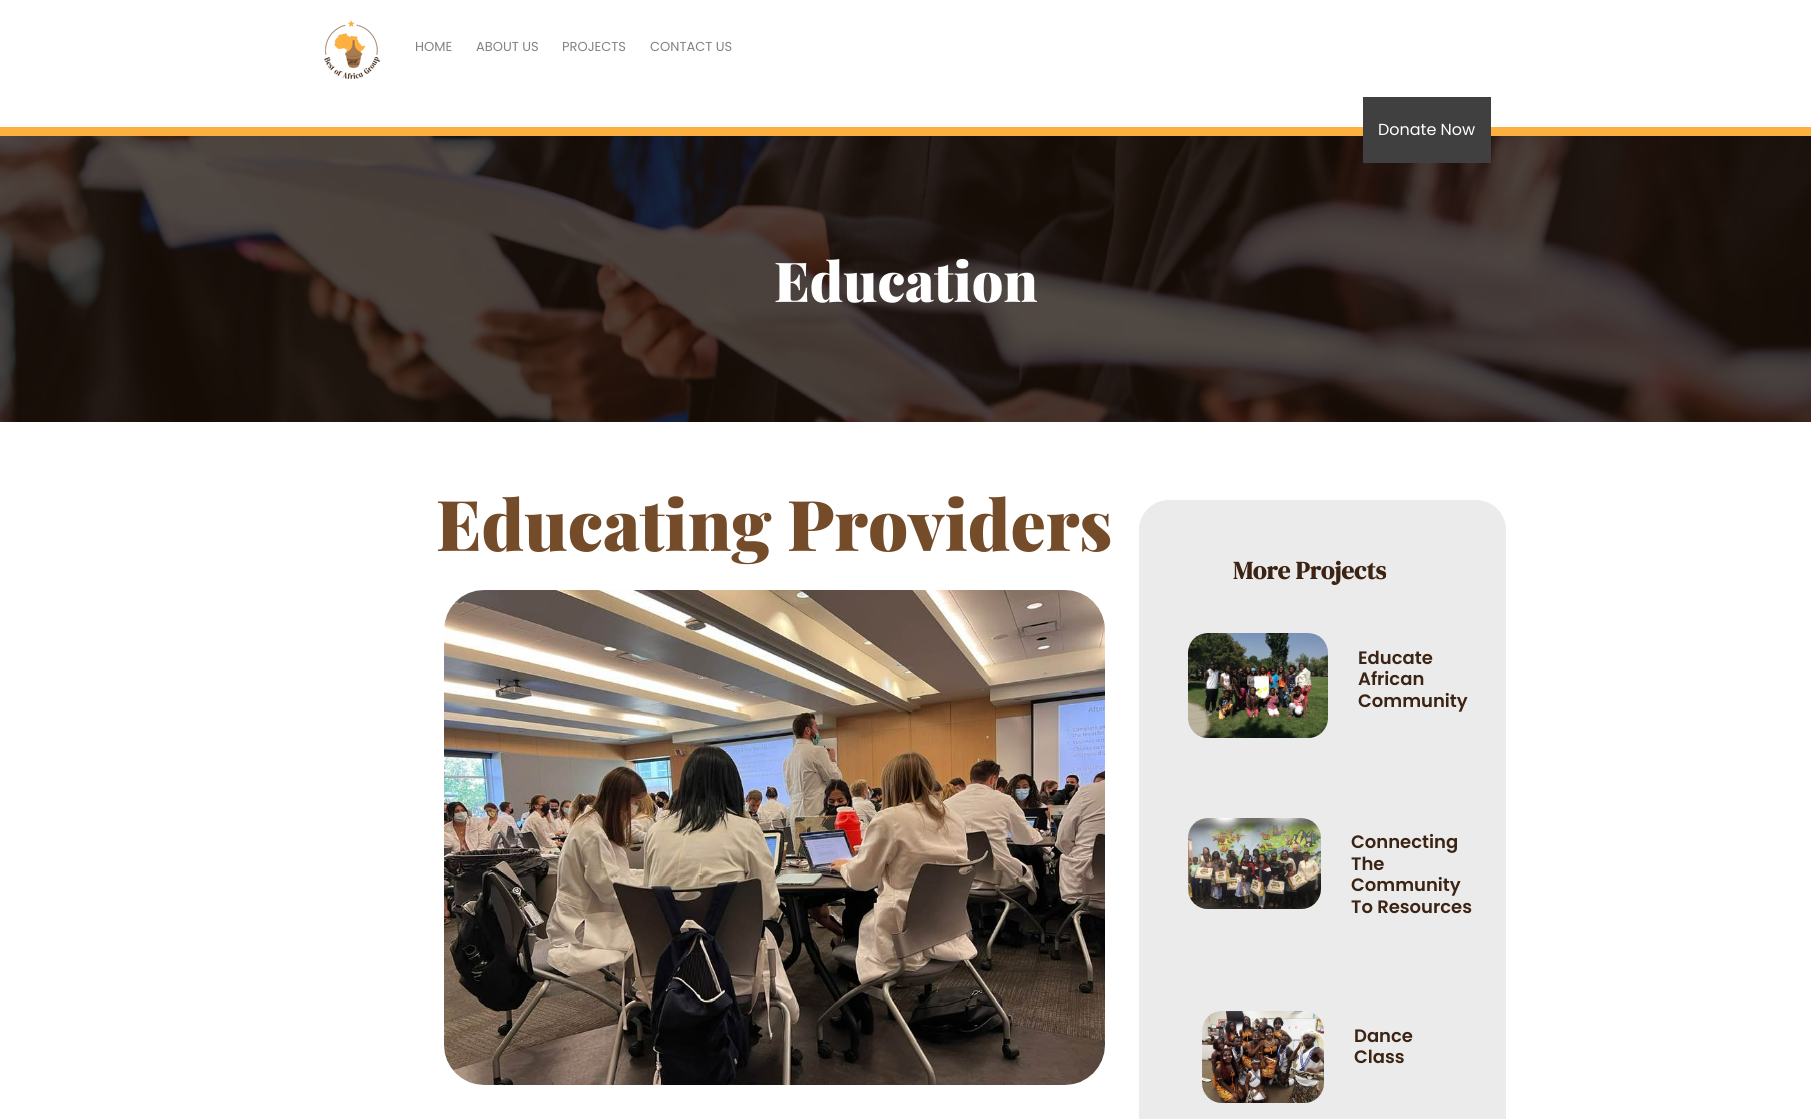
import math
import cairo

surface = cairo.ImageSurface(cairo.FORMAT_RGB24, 1811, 1119)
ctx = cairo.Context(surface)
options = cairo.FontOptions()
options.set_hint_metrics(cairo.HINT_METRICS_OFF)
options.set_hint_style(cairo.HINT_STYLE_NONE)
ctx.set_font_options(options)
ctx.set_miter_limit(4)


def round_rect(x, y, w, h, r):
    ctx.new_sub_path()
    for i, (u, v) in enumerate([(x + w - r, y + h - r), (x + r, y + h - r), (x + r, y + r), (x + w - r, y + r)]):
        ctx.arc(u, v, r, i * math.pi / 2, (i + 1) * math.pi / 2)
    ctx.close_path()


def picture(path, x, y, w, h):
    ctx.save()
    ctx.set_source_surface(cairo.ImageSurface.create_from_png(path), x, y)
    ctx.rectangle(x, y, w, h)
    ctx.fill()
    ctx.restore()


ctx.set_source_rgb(1, 1, 1)
ctx.paint()
picture("img1.png", 324, 20, 56, 59)
ctx.select_font_face("Poppins")
ctx.set_font_size(13)
ctx.set_source_rgb(0.51, 0.51, 0.51)
ctx.move_to(415, 51)
ctx.show_text("HOME")
ctx.move_to(476, 51)
ctx.show_text("ABOUT US")
ctx.move_to(562, 51)
ctx.show_text("PROJECTS")
ctx.move_to(650, 51)
ctx.show_text("CONTACT US")
ctx.set_source_rgb(0.984, 0.69, 0.251)
ctx.rectangle(0, 127, 1811, 9)
ctx.fill()
picture("img2.png", 0, 136, 1811, 286)
ctx.set_source_rgb(0.251, 0.251, 0.251)
ctx.rectangle(1363, 97, 128, 66)
ctx.fill()
ctx.set_font_size(16)
ctx.set_source_rgb(1, 1, 1)
ctx.move_to(1378, 135)
ctx.show_text("Donate Now")
ctx.select_font_face("Playfair Display Black")
ctx.set_font_size(55)
ctx.move_to(774, 302)
ctx.show_text("Education")
ctx.set_font_size(70)
ctx.set_source_rgb(0.459, 0.298, 0.161)
ctx.move_to(436, 551)
ctx.show_text("Educating Providers")
picture("img3.png", 444, 590, 661, 495)
ctx.set_source_rgb(0.918, 0.918, 0.918)
round_rect(1139, 500, 367, 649, 30)
ctx.fill()
ctx.select_font_face("DM Serif Display", cairo.FONT_SLANT_NORMAL, cairo.FONT_WEIGHT_BOLD)
ctx.set_font_size(25)
ctx.set_source_rgb(0.235, 0.141, 0.082)
ctx.move_to(1233, 579)
ctx.show_text("More Projects")
picture("img4.png", 1188, 633, 140, 105)
ctx.select_font_face("Poppins SemiBold")
ctx.set_font_size(18)
ctx.move_to(1358, 664)
ctx.show_text("Educate")
ctx.move_to(1358, 685)
ctx.show_text("African")
ctx.move_to(1358, 707)
ctx.show_text("Community")
picture("img5.png", 1188, 818, 133, 91)
ctx.move_to(1351, 848)
ctx.show_text("Connecting")
ctx.move_to(1351, 870)
ctx.show_text("The")
ctx.move_to(1351, 891)
ctx.show_text("Community")
ctx.move_to(1351, 913)
ctx.show_text("To Resources")
picture("img6.png", 1202, 1011, 122, 92)
ctx.move_to(1354, 1042)
ctx.show_text("Dance")
ctx.move_to(1354, 1063)
ctx.show_text("Class")
surface.write_to_png("page.png")
